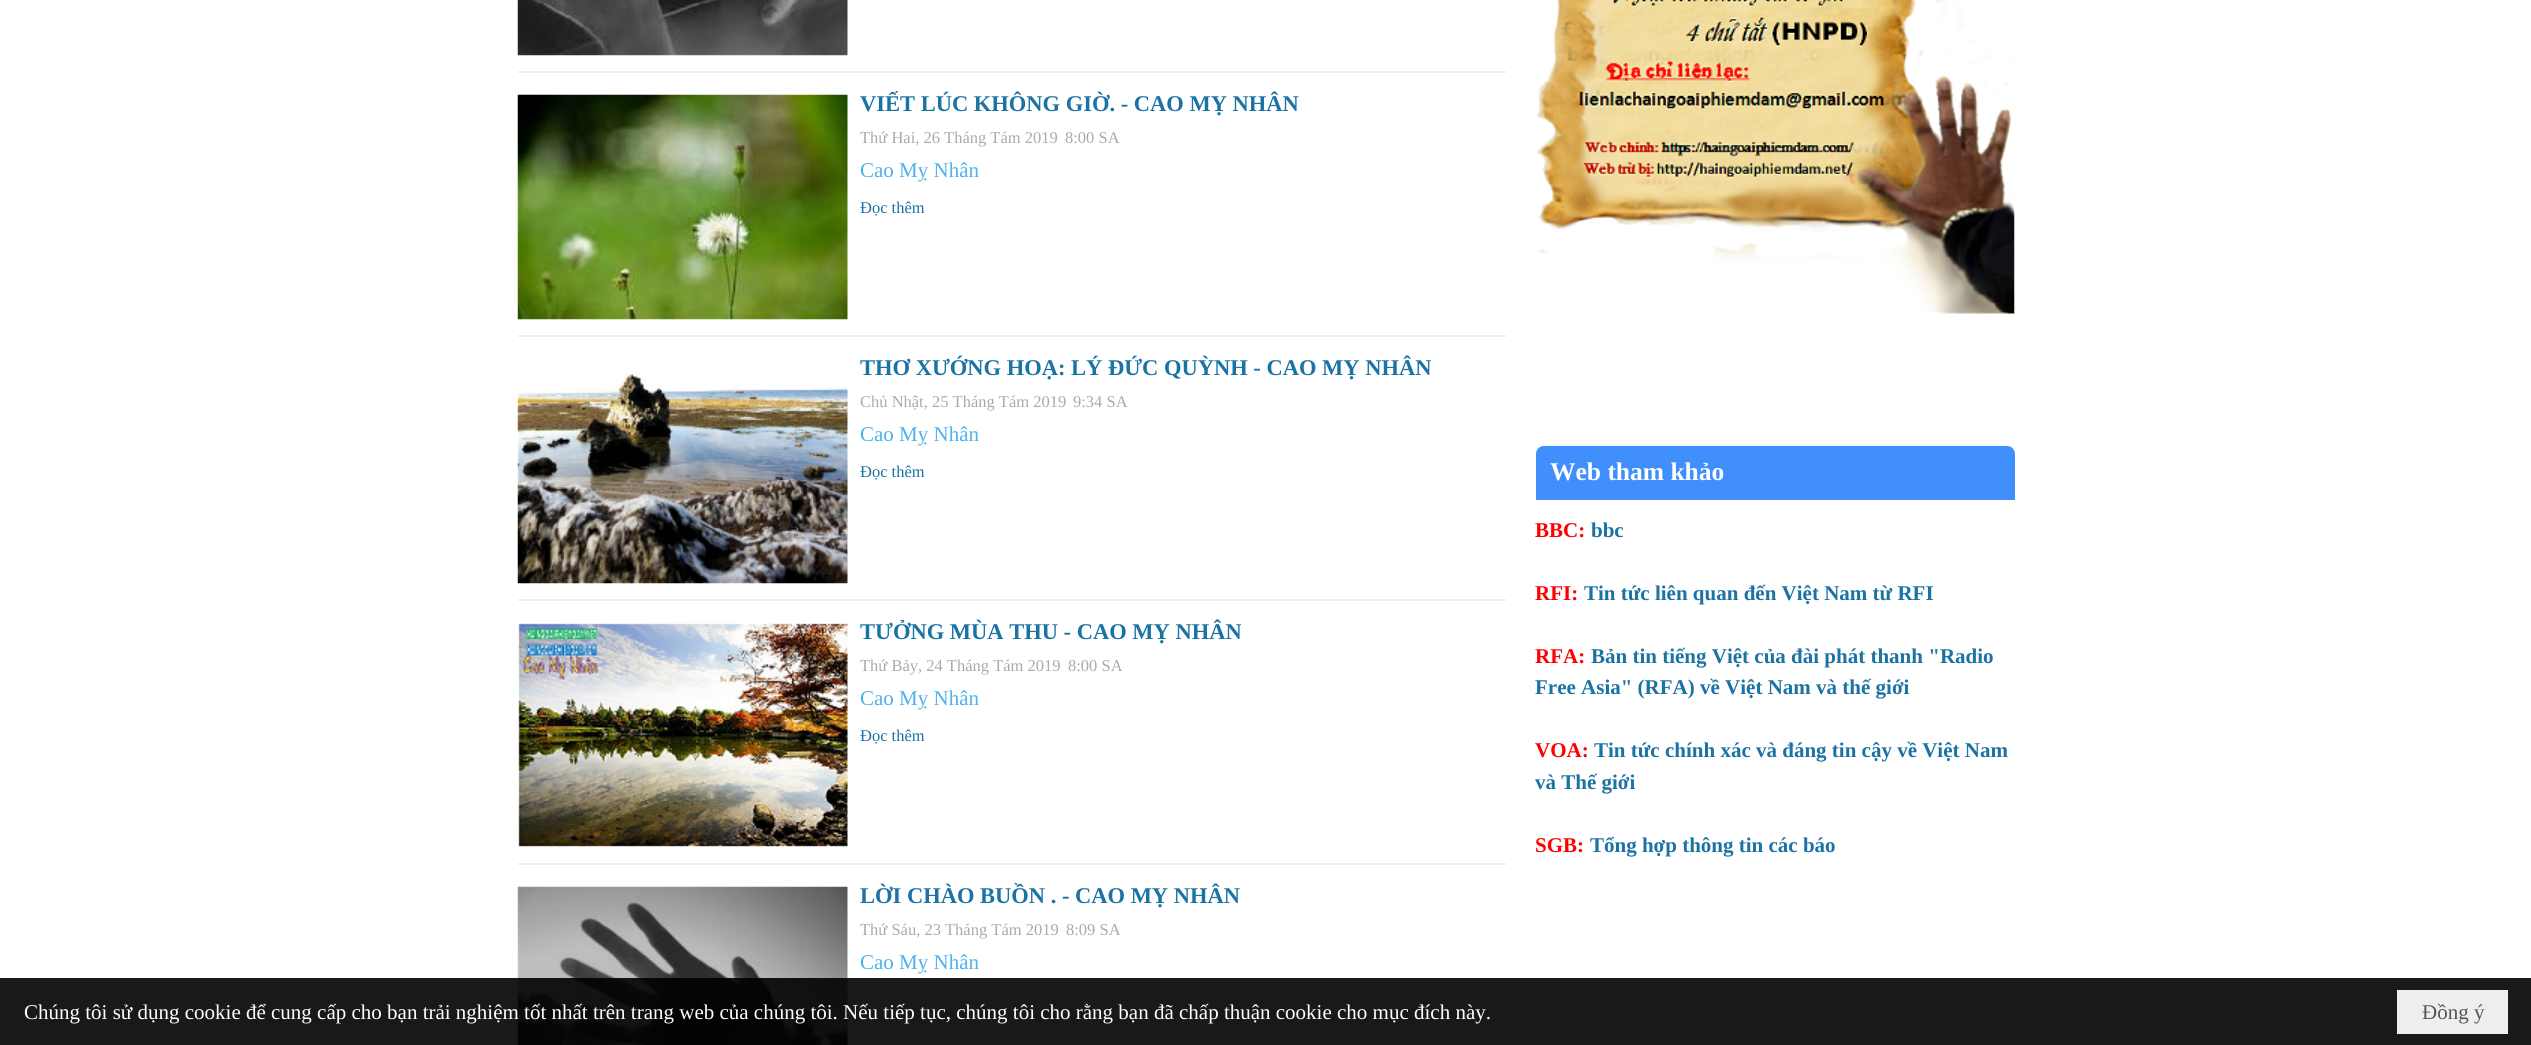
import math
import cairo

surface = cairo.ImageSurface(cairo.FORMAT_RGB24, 2531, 1045)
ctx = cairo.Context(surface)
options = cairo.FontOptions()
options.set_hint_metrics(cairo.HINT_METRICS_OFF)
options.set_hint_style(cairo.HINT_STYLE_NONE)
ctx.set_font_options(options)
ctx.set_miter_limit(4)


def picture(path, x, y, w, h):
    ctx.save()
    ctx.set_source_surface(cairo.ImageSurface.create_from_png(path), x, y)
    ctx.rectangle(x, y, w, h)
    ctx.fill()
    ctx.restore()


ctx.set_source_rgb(1, 1, 1)
ctx.paint()
ctx.set_source_rgb(0.933, 0.933, 0.933)
ctx.rectangle(518, 71, 988, 2)
ctx.fill()
picture("img1.png", 517, 0, 331, 56)
ctx.rectangle(518, 335, 988, 2)
ctx.fill()
picture("img2.png", 517, 94, 331, 226)
ctx.select_font_face("Liberation Serif", cairo.FONT_SLANT_NORMAL, cairo.FONT_WEIGHT_BOLD)
ctx.set_font_size(22.5)
ctx.set_source_rgb(0.106, 0.451, 0.643)
ctx.move_to(860, 111)
ctx.show_text("VIẾT LÚC KHÔNG GIỜ. - CAO MỴ NHÂN")
ctx.select_font_face("Liberation Serif")
ctx.set_font_size(16.5)
ctx.set_source_rgb(0.667, 0.667, 0.667)
ctx.move_to(860, 143)
ctx.show_text("Thứ Hai, 26 Tháng Tám 2019")
ctx.move_to(1065, 143)
ctx.show_text("8:00 SA")
ctx.set_font_size(21)
ctx.set_source_rgb(0.302, 0.694, 0.925)
ctx.move_to(860, 177)
ctx.show_text("Cao Mỵ Nhân")
ctx.set_font_size(16.5)
ctx.set_source_rgb(0.106, 0.451, 0.643)
ctx.move_to(860, 213)
ctx.show_text("Đọc thêm")
ctx.set_source_rgb(0.933, 0.933, 0.933)
ctx.rectangle(518, 599, 988, 2)
ctx.fill()
ctx.select_font_face("Liberation Serif", cairo.FONT_SLANT_NORMAL, cairo.FONT_WEIGHT_BOLD)
ctx.set_font_size(22.5)
ctx.set_source_rgb(0.106, 0.451, 0.643)
ctx.move_to(860, 375)
ctx.show_text("THƠ XƯỚNG HOẠ: LÝ ĐỨC QUỲNH - CAO MỴ NHÂN")
picture("img3.png", 517, 373, 331, 211)
ctx.select_font_face("Liberation Serif")
ctx.set_font_size(16.5)
ctx.set_source_rgb(0.667, 0.667, 0.667)
ctx.move_to(860, 407)
ctx.show_text("Chủ Nhật, 25 Tháng Tám 2019")
ctx.move_to(1073, 407)
ctx.show_text("9:34 SA")
ctx.set_font_size(21)
ctx.set_source_rgb(0.302, 0.694, 0.925)
ctx.move_to(860, 441)
ctx.show_text("Cao Mỵ Nhân")
ctx.set_font_size(16.5)
ctx.set_source_rgb(0.106, 0.451, 0.643)
ctx.move_to(860, 477)
ctx.show_text("Đọc thêm")
ctx.set_source_rgb(0.933, 0.933, 0.933)
ctx.rectangle(518, 863, 988, 2)
ctx.fill()
picture("img4.png", 518, 623, 330, 224)
ctx.select_font_face("Liberation Serif", cairo.FONT_SLANT_NORMAL, cairo.FONT_WEIGHT_BOLD)
ctx.set_font_size(22.5)
ctx.set_source_rgb(0.106, 0.451, 0.643)
ctx.move_to(860, 639)
ctx.show_text("TƯỞNG MÙA THU - CAO MỴ NHÂN")
ctx.select_font_face("Liberation Serif")
ctx.set_font_size(16.5)
ctx.set_source_rgb(0.667, 0.667, 0.667)
ctx.move_to(860, 671)
ctx.show_text("Thứ Bảy, 24 Tháng Tám 2019")
ctx.move_to(1068, 671)
ctx.show_text("8:00 SA")
ctx.set_font_size(21)
ctx.set_source_rgb(0.302, 0.694, 0.925)
ctx.move_to(860, 705)
ctx.show_text("Cao Mỵ Nhân")
ctx.set_font_size(16.5)
ctx.set_source_rgb(0.106, 0.451, 0.643)
ctx.move_to(860, 741)
ctx.show_text("Đọc thêm")
picture("img5.png", 517, 886, 331, 159)
ctx.select_font_face("Liberation Serif", cairo.FONT_SLANT_NORMAL, cairo.FONT_WEIGHT_BOLD)
ctx.set_font_size(22.5)
ctx.move_to(860, 903)
ctx.show_text("LỜI CHÀO BUỒN . - CAO MỴ NHÂN")
ctx.select_font_face("Liberation Serif")
ctx.set_font_size(16.5)
ctx.set_source_rgb(0.667, 0.667, 0.667)
ctx.move_to(860, 935)
ctx.show_text("Thứ Sáu, 23 Tháng Tám 2019")
ctx.move_to(1066, 935)
ctx.show_text("8:09 SA")
ctx.set_font_size(21)
ctx.set_source_rgb(0.302, 0.694, 0.925)
ctx.move_to(860, 969)
ctx.show_text("Cao Mỵ Nhân")
picture("img6.png", 1537, 0, 478, 314)
ctx.set_source_rgb(0.255, 0.561, 0.988)
ctx.new_path()
ctx.move_to(1544, 446)
ctx.line_to(2007, 446)
ctx.curve_to(2011.5, 446, 2015, 449.5, 2015, 454)
ctx.line_to(2015, 500)
ctx.line_to(1536, 500)
ctx.line_to(1536, 454)
ctx.curve_to(1536, 449.5, 1539.5, 446, 1544, 446)
ctx.close_path()
ctx.fill()
ctx.select_font_face("Liberation Serif", cairo.FONT_SLANT_NORMAL, cairo.FONT_WEIGHT_BOLD)
ctx.set_font_size(25.5)
ctx.set_source_rgb(1, 1, 1)
ctx.move_to(1550, 480)
ctx.show_text("Web tham khảo")
ctx.set_font_size(21)
ctx.set_source_rgb(1, 0, 0)
ctx.move_to(1535, 537)
ctx.show_text("BBC:")
ctx.set_source_rgb(0.106, 0.451, 0.643)
ctx.move_to(1591, 537)
ctx.show_text("bbc")
ctx.set_source_rgb(1, 0, 0)
ctx.move_to(1535, 600)
ctx.show_text("RFI:")
ctx.set_source_rgb(0.106, 0.451, 0.643)
ctx.move_to(1584, 600)
ctx.show_text("Tin tức liên quan đến Việt Nam từ RFI")
ctx.set_source_rgb(1, 0, 0)
ctx.move_to(1535, 663)
ctx.show_text("RFA:")
ctx.set_source_rgb(0.106, 0.451, 0.643)
ctx.move_to(1591, 663)
ctx.show_text("Bản tin tiếng Việt của đài phát thanh \"Radio")
ctx.move_to(1535, 694)
ctx.show_text("Free Asia\" (RFA) về Việt Nam và thế giới")
ctx.set_source_rgb(1, 0, 0)
ctx.move_to(1535, 757)
ctx.show_text("VOA:")
ctx.set_source_rgb(0.106, 0.451, 0.643)
ctx.move_to(1594, 757)
ctx.show_text("Tin tức chính xác và đáng tin cậy về Việt Nam")
ctx.move_to(1535, 789)
ctx.show_text("và Thế giới")
ctx.set_source_rgb(1, 0, 0)
ctx.move_to(1535, 852)
ctx.show_text("SGB:")
ctx.set_source_rgb(0.106, 0.451, 0.643)
ctx.move_to(1590, 852)
ctx.show_text("Tổng hợp thông tin các báo")
ctx.set_source_rgba(0, 0, 0, 0.9)
ctx.rectangle(0, 978, 2531, 67)
ctx.fill()
ctx.select_font_face("Liberation Serif")
ctx.set_source_rgb(1, 1, 1)
ctx.move_to(24, 1019)
ctx.show_text("Chúng tôi sử dụng cookie để cung cấp cho bạn trải nghiệm tốt nhất trên trang web của chúng tôi. Nếu tiếp tục, chúng tôi cho rằng bạn đã chấp thuận cookie cho mục đích này.")
ctx.set_source_rgb(0.933, 0.933, 0.933)
ctx.rectangle(2397, 990, 111, 44)
ctx.fill()
ctx.set_source_rgb(0.333, 0.333, 0.333)
ctx.move_to(2422, 1019)
ctx.show_text("Đồng ý")
surface.write_to_png("page.png")
